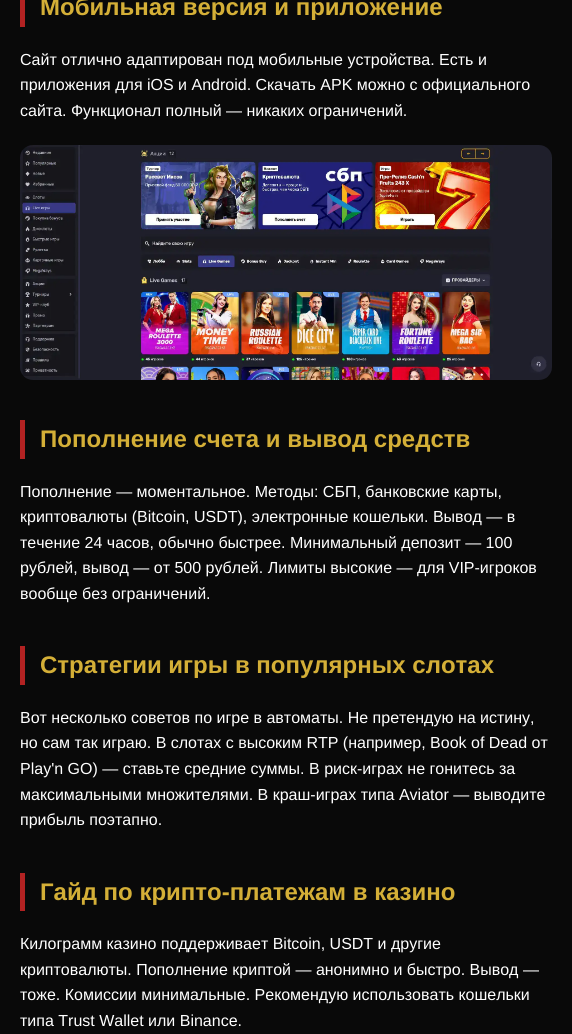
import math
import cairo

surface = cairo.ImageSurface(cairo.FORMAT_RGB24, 572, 1034)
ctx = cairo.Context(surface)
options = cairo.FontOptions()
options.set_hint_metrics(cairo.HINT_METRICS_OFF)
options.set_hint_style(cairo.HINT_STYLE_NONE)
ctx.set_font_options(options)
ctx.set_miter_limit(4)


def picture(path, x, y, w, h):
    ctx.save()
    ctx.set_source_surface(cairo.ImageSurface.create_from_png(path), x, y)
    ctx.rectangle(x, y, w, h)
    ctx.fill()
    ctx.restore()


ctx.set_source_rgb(0.039, 0.039, 0.039)
ctx.paint()
ctx.set_source_rgb(0.698, 0.133, 0.133)
ctx.rectangle(20, 0, 5, 27)
ctx.fill()
ctx.select_font_face("Liberation Sans", cairo.FONT_SLANT_NORMAL, cairo.FONT_WEIGHT_BOLD)
ctx.set_font_size(24)
ctx.set_source_rgb(0.831, 0.686, 0.216)
ctx.move_to(40, 15)
ctx.show_text("Мобильная версия и приложение")
ctx.select_font_face("Liberation Sans")
ctx.set_font_size(16)
ctx.set_source_rgb(1, 1, 1)
ctx.move_to(20, 65)
ctx.show_text("Сайт отлично адаптирован под мобильные устройства. Есть и")
ctx.move_to(20, 90)
ctx.show_text("приложения для iOS и Android. Скачать APK можно с официального")
ctx.move_to(20, 116)
ctx.show_text("сайта. Функционал полный — никаких ограничений.")
picture("img1.png", 20, 145, 532, 235)
ctx.set_source_rgb(0.698, 0.133, 0.133)
ctx.rectangle(20, 420, 5, 39)
ctx.fill()
ctx.select_font_face("Liberation Sans", cairo.FONT_SLANT_NORMAL, cairo.FONT_WEIGHT_BOLD)
ctx.set_font_size(24)
ctx.set_source_rgb(0.831, 0.686, 0.216)
ctx.move_to(40, 447)
ctx.show_text("Пополнение счета и вывод средств")
ctx.select_font_face("Liberation Sans")
ctx.set_font_size(16)
ctx.set_source_rgb(1, 1, 1)
ctx.move_to(20, 497)
ctx.show_text("Пополнение — моментальное. Методы: СБП, банковские карты,")
ctx.move_to(20, 522)
ctx.show_text("криптовалюты (Bitcoin, USDT), электронные кошельки. Вывод — в")
ctx.move_to(20, 548)
ctx.show_text("течение 24 часов, обычно быстрее. Минимальный депозит — 100")
ctx.move_to(20, 573)
ctx.show_text("рублей, вывод — от 500 рублей. Лимиты высокие — для VIP-игроков")
ctx.move_to(20, 599)
ctx.show_text("вообще без ограничений.")
ctx.set_source_rgb(0.698, 0.133, 0.133)
ctx.rectangle(20, 646, 5, 39)
ctx.fill()
ctx.select_font_face("Liberation Sans", cairo.FONT_SLANT_NORMAL, cairo.FONT_WEIGHT_BOLD)
ctx.set_font_size(24)
ctx.set_source_rgb(0.831, 0.686, 0.216)
ctx.move_to(40, 673)
ctx.show_text("Стратегии игры в популярных слотах")
ctx.select_font_face("Liberation Sans")
ctx.set_font_size(16)
ctx.set_source_rgb(1, 1, 1)
ctx.move_to(20, 723)
ctx.show_text("Вот несколько советов по игре в автоматы. Не претендую на истину,")
ctx.move_to(20, 748)
ctx.show_text("но сам так играю. В слотах с высоким RTP (например, Book of Dead от")
ctx.move_to(20, 774)
ctx.show_text("Play'n GO) — ставьте средние суммы. В риск-играх не гонитесь за")
ctx.move_to(20, 800)
ctx.show_text("максимальными множителями. В краш-играх типа Aviator — выводите")
ctx.move_to(20, 825)
ctx.show_text("прибыль поэтапно.")
ctx.set_source_rgb(0.698, 0.133, 0.133)
ctx.rectangle(20, 873, 5, 38)
ctx.fill()
ctx.select_font_face("Liberation Sans", cairo.FONT_SLANT_NORMAL, cairo.FONT_WEIGHT_BOLD)
ctx.set_font_size(24)
ctx.set_source_rgb(0.831, 0.686, 0.216)
ctx.move_to(40, 900)
ctx.show_text("Гайд по крипто-платежам в казино")
ctx.select_font_face("Liberation Sans")
ctx.set_font_size(16)
ctx.set_source_rgb(1, 1, 1)
ctx.move_to(20, 949)
ctx.show_text("Килограмм казино поддерживает Bitcoin, USDT и другие")
ctx.move_to(20, 975)
ctx.show_text("криптовалюты. Пополнение криптой — анонимно и быстро. Вывод —")
ctx.move_to(20, 1000)
ctx.show_text("тоже. Комиссии минимальные. Рекомендую использовать кошельки")
ctx.move_to(20, 1026)
ctx.show_text("типа Trust Wallet или Binance.")
surface.write_to_png("page.png")
